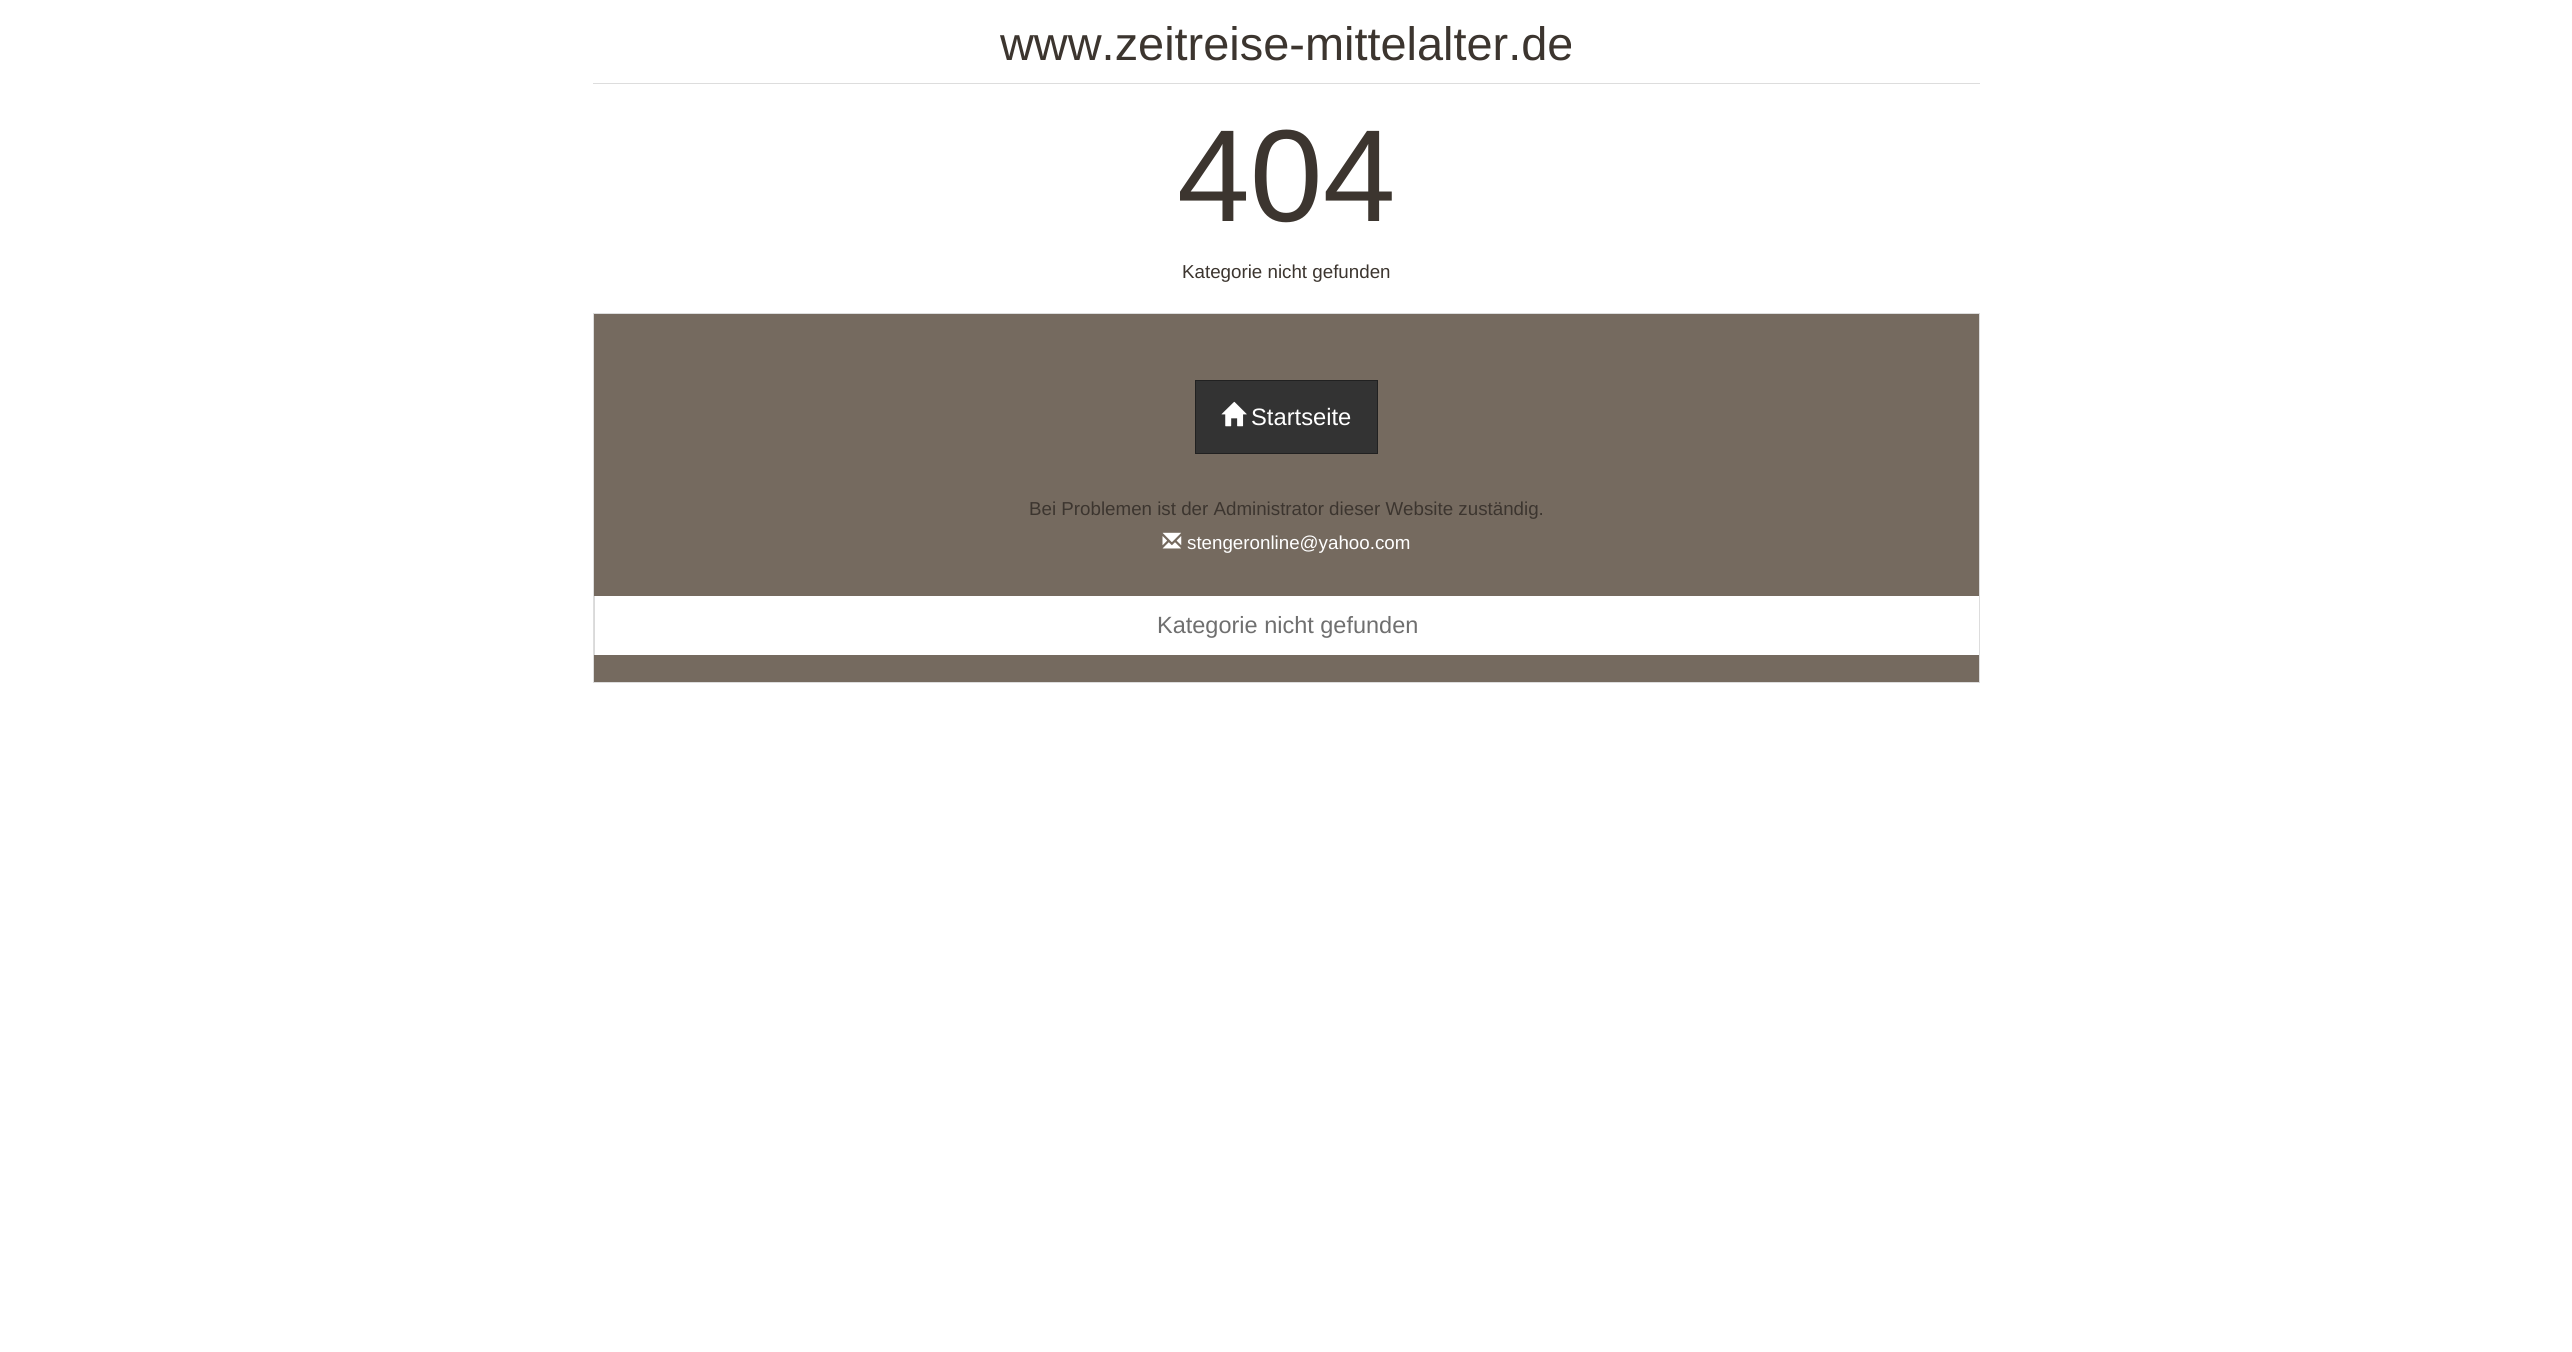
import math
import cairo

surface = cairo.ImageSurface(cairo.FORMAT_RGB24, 2572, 1352)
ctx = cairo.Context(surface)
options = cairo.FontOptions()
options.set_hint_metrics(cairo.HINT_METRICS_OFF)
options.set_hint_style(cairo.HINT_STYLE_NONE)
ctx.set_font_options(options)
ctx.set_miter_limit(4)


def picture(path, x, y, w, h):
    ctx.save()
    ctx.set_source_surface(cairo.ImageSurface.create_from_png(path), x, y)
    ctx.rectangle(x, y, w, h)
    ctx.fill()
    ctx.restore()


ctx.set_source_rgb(1, 1, 1)
ctx.paint()
ctx.set_source_rgb(0.867, 0.867, 0.867)
ctx.rectangle(593, 83, 1387, 1)
ctx.fill()
ctx.select_font_face("Liberation Sans")
ctx.set_font_size(46.9)
ctx.set_source_rgb(0.235, 0.208, 0.184)
ctx.move_to(1000, 60)
ctx.show_text("www.zeitreise-mittelalter.de")
ctx.set_font_size(131)
ctx.move_to(1177, 221)
ctx.show_text("404")
ctx.set_font_size(18.75)
ctx.move_to(1182, 278)
ctx.show_text("Kategorie nicht gefunden")
ctx.set_source_rgb(0.459, 0.416, 0.373)
ctx.rectangle(593.5, 313.5, 1386, 369)
ctx.fill_preserve()
ctx.set_source_rgb(0.867, 0.867, 0.867)
ctx.set_line_width(1)
ctx.stroke()
ctx.set_source_rgb(0.2, 0.2, 0.2)
ctx.rectangle(1195.5, 380.5, 182, 73)
ctx.fill_preserve()
ctx.set_source_rgb(0.129, 0.129, 0.129)
ctx.stroke()
picture("img1.png", 1221, 401, 26, 26)
ctx.set_font_size(23.75)
ctx.set_source_rgb(1, 1, 1)
ctx.move_to(1251, 425)
ctx.show_text("Startseite")
ctx.set_font_size(18.75)
ctx.set_source_rgb(0.235, 0.208, 0.184)
ctx.move_to(1029, 515)
ctx.show_text("Bei Problemen ist der Administrator dieser Website zuständig.")
picture("img2.png", 1162, 532, 20, 17)
ctx.set_source_rgb(1, 1, 1)
ctx.move_to(1187, 549)
ctx.show_text("stengeronline@yahoo.com")
ctx.rectangle(595, 596, 1384, 59)
ctx.fill()
ctx.set_source_rgb(0.851, 0.851, 0.851)
ctx.rectangle(594, 596, 1, 59)
ctx.fill()
ctx.set_font_size(23.5)
ctx.set_source_rgb(0.435, 0.435, 0.435)
ctx.move_to(1157, 633)
ctx.show_text("Kategorie nicht gefunden")
surface.write_to_png("page.png")
